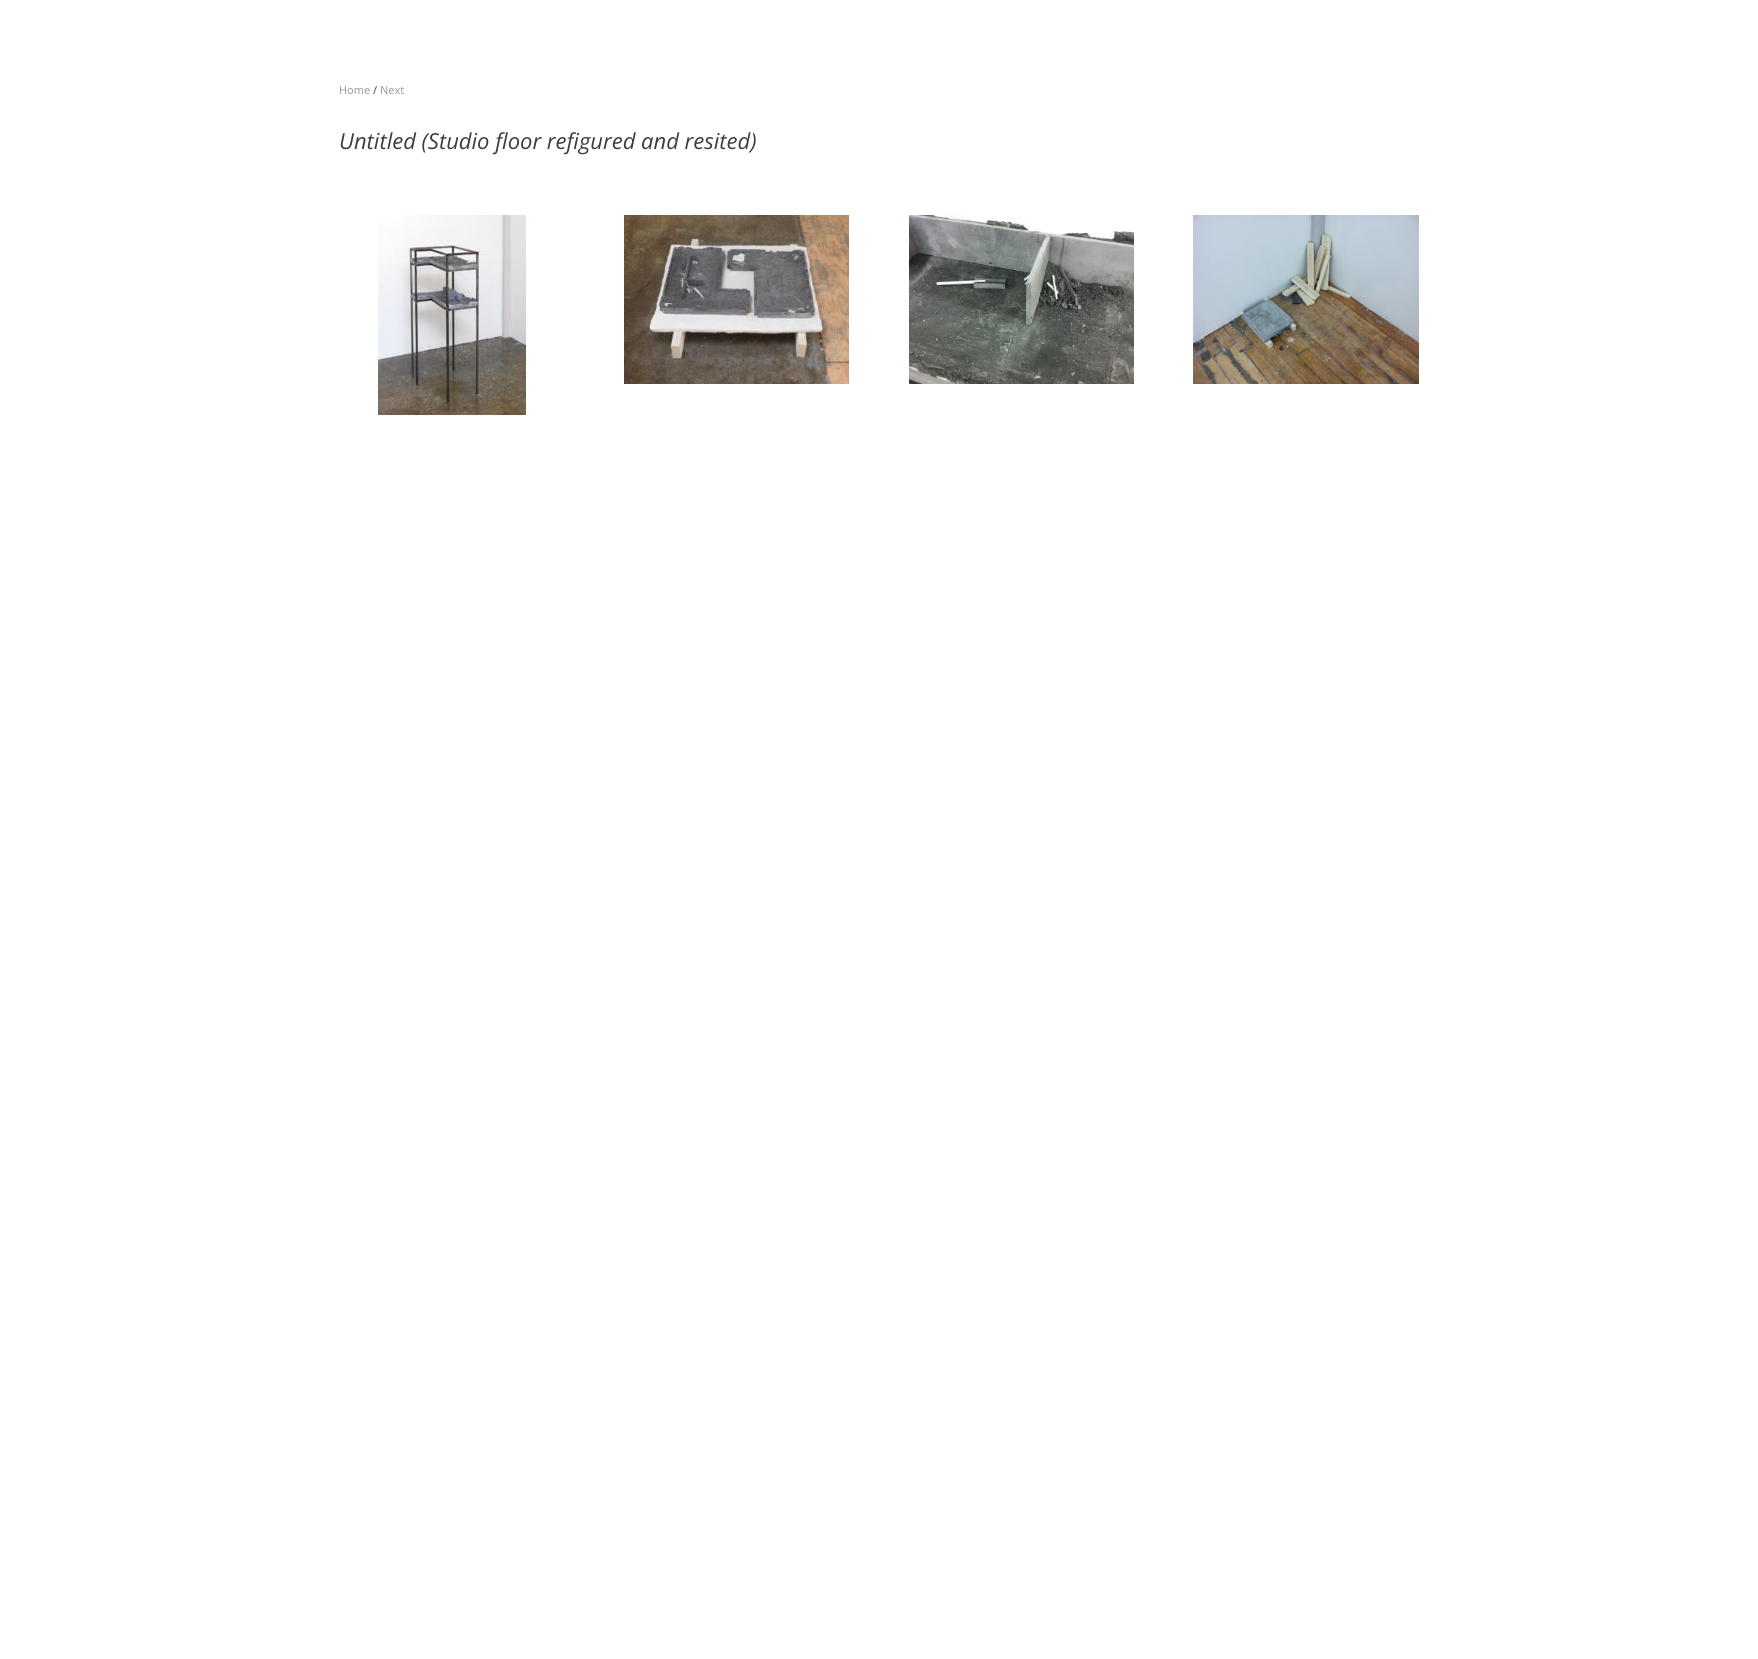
import math
import cairo

surface = cairo.ImageSurface(cairo.FORMAT_RGB24, 1758, 1659)
ctx = cairo.Context(surface)
options = cairo.FontOptions()
options.set_hint_metrics(cairo.HINT_METRICS_OFF)
options.set_hint_style(cairo.HINT_STYLE_NONE)
ctx.set_font_options(options)
ctx.set_miter_limit(4)


def picture(path, x, y, w, h):
    ctx.save()
    ctx.set_source_surface(cairo.ImageSurface.create_from_png(path), x, y)
    ctx.rectangle(x, y, w, h)
    ctx.fill()
    ctx.restore()


ctx.set_source_rgb(1, 1, 1)
ctx.paint()
ctx.select_font_face("Open Sans")
ctx.set_font_size(11)
ctx.set_source_rgb(0.588, 0.588, 0.588)
ctx.move_to(339, 94)
ctx.show_text("Home")
ctx.set_source_rgb(0.239, 0.239, 0.239)
ctx.move_to(373, 94)
ctx.show_text("/")
ctx.set_source_rgb(0.588, 0.588, 0.588)
ctx.move_to(380, 94)
ctx.show_text("Next")
ctx.select_font_face("Open Sans", cairo.FONT_SLANT_ITALIC)
ctx.set_font_size(22)
ctx.set_source_rgb(0.239, 0.239, 0.239)
ctx.move_to(339, 149)
ctx.show_text("Untitled (Studio floor refigured and resited)")
picture("img1.png", 378, 215, 148, 200)
picture("img2.png", 624, 215, 225, 169)
picture("img3.png", 909, 215, 225, 169)
picture("img4.png", 1193, 215, 226, 169)
surface.write_to_png("page.png")
